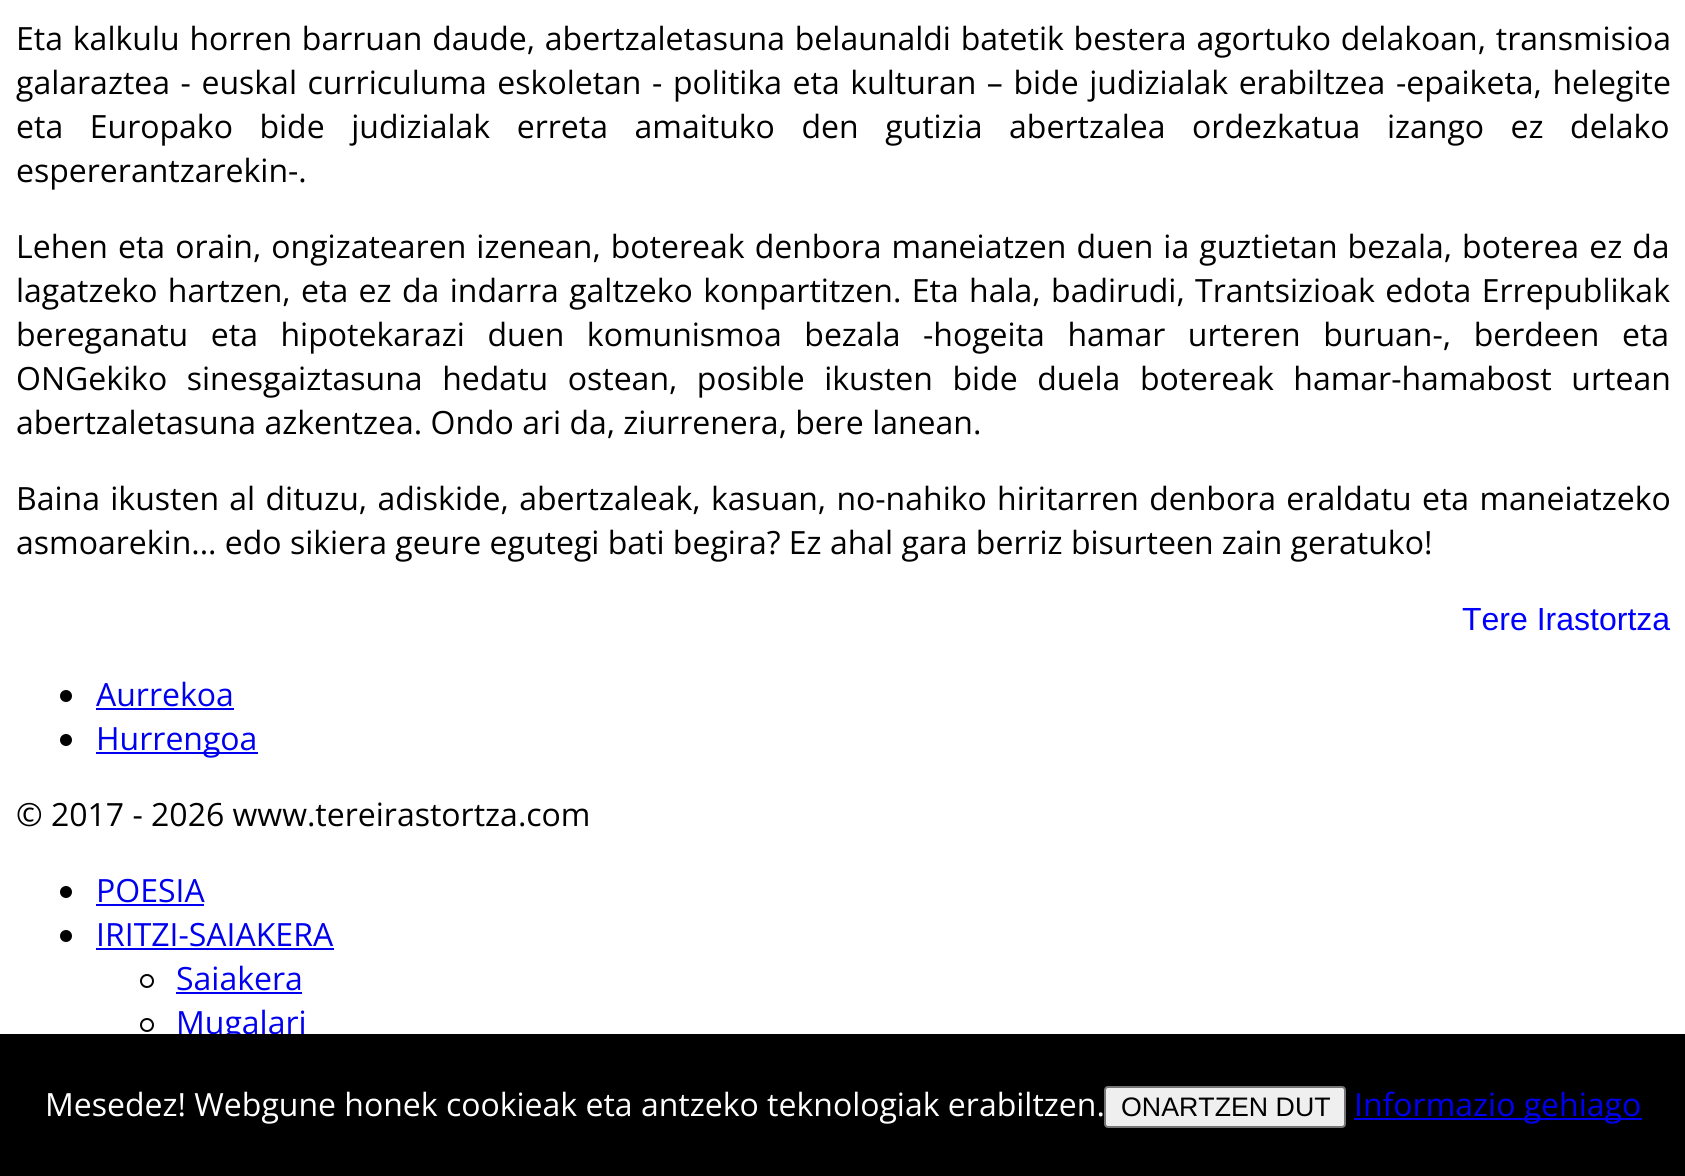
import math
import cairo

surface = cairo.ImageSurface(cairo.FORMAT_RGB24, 1685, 1176)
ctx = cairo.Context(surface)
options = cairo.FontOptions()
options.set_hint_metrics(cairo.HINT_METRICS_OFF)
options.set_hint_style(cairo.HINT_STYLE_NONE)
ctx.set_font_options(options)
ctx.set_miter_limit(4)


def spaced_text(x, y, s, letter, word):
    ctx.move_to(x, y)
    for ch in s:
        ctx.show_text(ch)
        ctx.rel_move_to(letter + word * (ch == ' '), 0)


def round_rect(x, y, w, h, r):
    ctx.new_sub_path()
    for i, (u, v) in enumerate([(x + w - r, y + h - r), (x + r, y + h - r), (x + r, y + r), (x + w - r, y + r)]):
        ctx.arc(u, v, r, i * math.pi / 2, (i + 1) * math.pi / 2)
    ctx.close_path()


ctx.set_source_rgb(1, 1, 1)
ctx.paint()
ctx.select_font_face("Open Sans")
ctx.set_font_size(32)
ctx.set_source_rgb(0, 0, 0)
spaced_text(16, 50, "Eta kalkulu horren barruan daude, abertzaletasuna belaunaldi batetik bestera agortuko delakoan, transmisioa", 0, 1.5)
spaced_text(16, 94, "galaraztea - euskal curriculuma eskoletan - politika eta kulturan – bide judizialak erabiltzea -epaiketa, helegite", 0, 2.25)
spaced_text(16, 138, "eta Europako bide judizialak erreta amaituko den gutizia abertzalea ordezkatua izango ez delako", 0, 18.25)
ctx.move_to(16, 182)
ctx.show_text("espererantzarekin-.")
spaced_text(16, 258, "Lehen eta orain, ongizatearen izenean, botereak denbora maneiatzen duen ia guztietan bezala, boterea ez da", 0, 1.75)
spaced_text(16, 302, "lagatzeko hartzen, eta ez da indarra galtzeko konpartitzen. Eta hala, badirudi, Trantsizioak edota Errepublikak", 0, 2.1)
spaced_text(16, 346, "bereganatu eta hipotekarazi duen komunismoa bezala -hogeita hamar urteren buruan-, berdeen eta", 0, 14.25)
spaced_text(16, 390, "ONGekiko sinesgaiztasuna hedatu ostean, posible ikusten bide duela botereak hamar-hamabost urtean", 0, 11.25)
ctx.move_to(16, 434)
ctx.show_text("abertzaletasuna azkentzea. Ondo ari da, ziurrenera, bere lanean.")
spaced_text(16, 510, "Baina ikusten al dituzu, adiskide, abertzaleak, kasuan, no-nahiko hiritarren denbora eraldatu eta maneiatzeko", 0, 2)
ctx.move_to(16, 554)
ctx.show_text("asmoarekin... edo sikiera geure egutegi bati begira? Ez ahal gara berriz bisurteen zain geratuko!")
ctx.select_font_face("Liberation Sans")
ctx.set_source_rgb(0, 0, 1)
ctx.move_to(1462, 630)
ctx.show_text("Tere Irastortza")
ctx.set_source_rgb(0, 0, 0)
ctx.new_path()
ctx.arc(66, 696, 6, 0, 2 * math.pi)
ctx.fill()
ctx.select_font_face("Open Sans")
ctx.set_source_rgb(0, 0, 0.933)
ctx.move_to(96, 706)
ctx.show_text("Aurrekoa")
ctx.rectangle(96, 708, 138, 2)
ctx.fill()
ctx.set_source_rgb(0, 0, 0)
ctx.arc(66, 740, 6, 0, 2 * math.pi)
ctx.fill()
ctx.set_source_rgb(0, 0, 0.933)
ctx.rectangle(96, 752, 162, 2)
ctx.fill()
ctx.move_to(96, 750)
ctx.show_text("Hurrengoa")
ctx.set_source_rgb(0, 0, 0)
ctx.move_to(16, 826)
ctx.show_text("© 2017 - 2026 www.tereirastortza.com")
ctx.new_path()
ctx.arc(66, 892, 6, 0, 2 * math.pi)
ctx.fill()
ctx.set_source_rgb(0, 0, 0.933)
ctx.move_to(96, 902)
ctx.show_text("POESIA")
ctx.rectangle(96, 904, 108, 2)
ctx.fill()
ctx.set_source_rgb(0, 0, 0)
ctx.arc(66, 936, 6, 0, 2 * math.pi)
ctx.fill()
ctx.set_source_rgb(0, 0, 0.933)
ctx.move_to(96, 946)
ctx.show_text("IRITZI-SAIAKERA")
ctx.rectangle(96, 948, 238, 2)
ctx.fill()
ctx.arc(147, 981, 6, 0, 2 * math.pi)
ctx.set_source_rgb(0, 0, 0)
ctx.stroke()
ctx.set_source_rgb(0, 0, 0.933)
ctx.move_to(176, 990)
ctx.show_text("Saiakera")
ctx.rectangle(176, 992, 126, 2)
ctx.fill()
ctx.arc(147, 1025, 6, 0, 2 * math.pi)
ctx.set_source_rgb(0, 0, 0)
ctx.stroke()
ctx.set_source_rgb(0, 0, 0.933)
ctx.move_to(176, 1034)
ctx.show_text("Mugalari")
ctx.set_source_rgb(0, 0, 0)
ctx.rectangle(0, 1034, 1685, 142)
ctx.fill()
ctx.set_source_rgb(1, 1, 1)
ctx.move_to(45, 1116)
ctx.show_text("Mesedez! Webgune honek cookieak eta antzeko teknologiak erabiltzen.")
ctx.set_source_rgb(0.937, 0.937, 0.937)
round_rect(1105, 1087, 240, 40, 3)
ctx.fill_preserve()
ctx.set_source_rgb(0.463, 0.463, 0.463)
ctx.stroke()
ctx.select_font_face("Liberation Sans")
ctx.set_font_size(26.75)
ctx.set_source_rgb(0, 0, 0)
ctx.move_to(1121, 1116)
ctx.show_text("ONARTZEN DUT")
ctx.set_source_rgb(0, 0, 0.933)
ctx.rectangle(1354, 1118, 288, 2)
ctx.fill()
ctx.select_font_face("Open Sans")
ctx.set_font_size(32)
ctx.move_to(1354, 1116)
ctx.show_text("Informazio gehiago")
surface.write_to_png("page.png")
